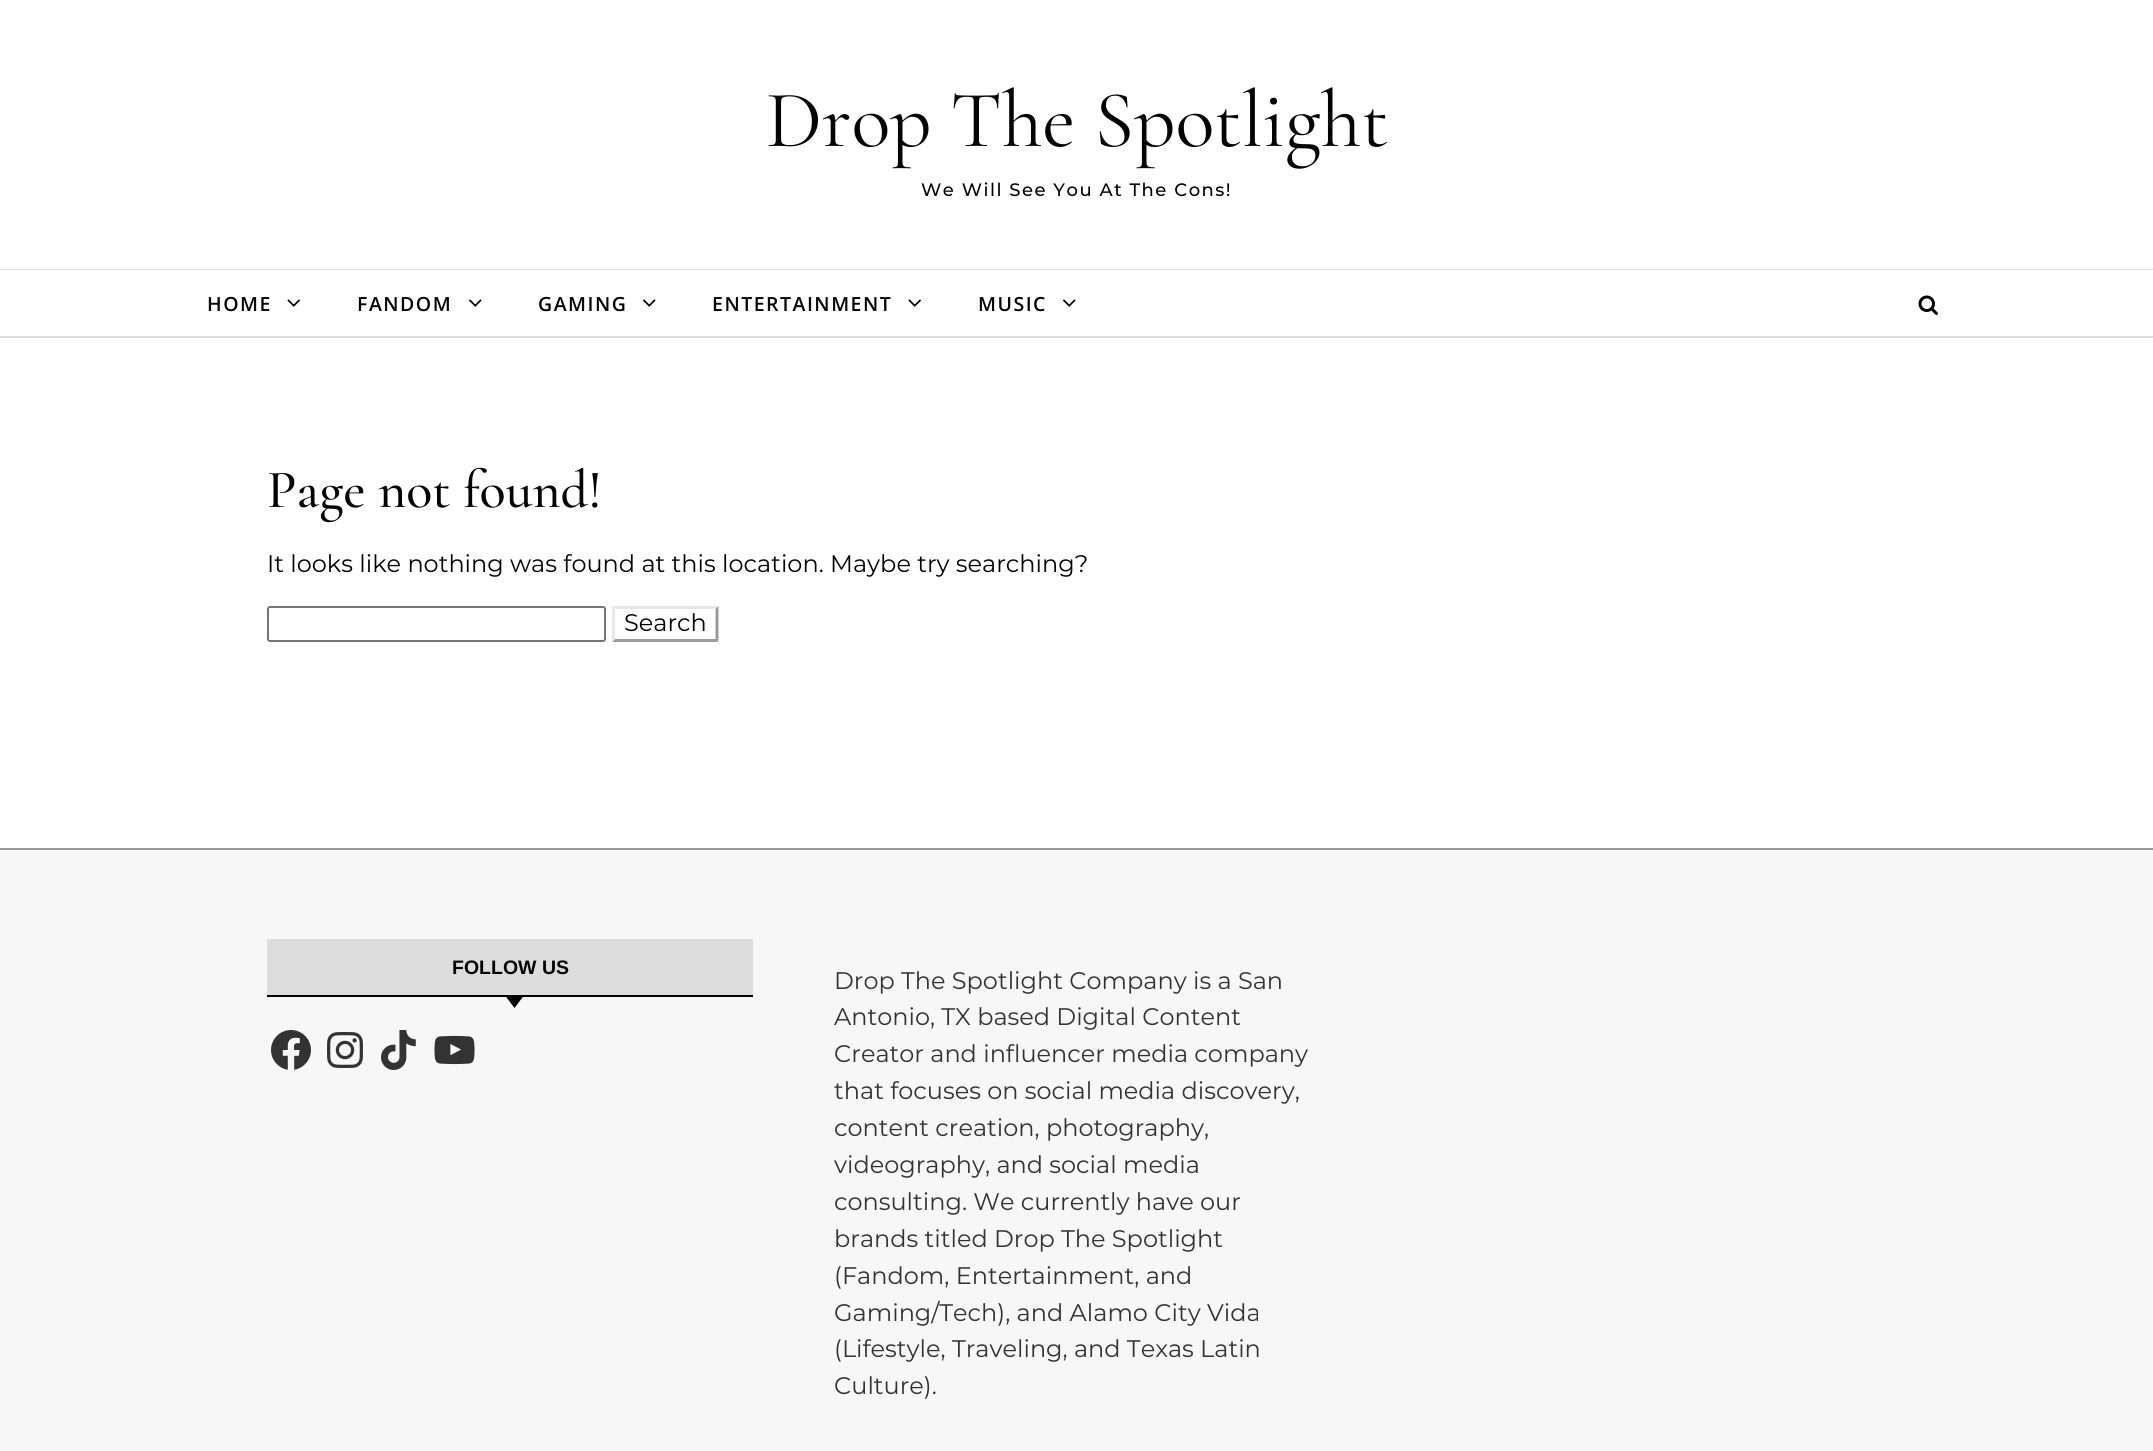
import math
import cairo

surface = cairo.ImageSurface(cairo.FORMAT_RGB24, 2153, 1451)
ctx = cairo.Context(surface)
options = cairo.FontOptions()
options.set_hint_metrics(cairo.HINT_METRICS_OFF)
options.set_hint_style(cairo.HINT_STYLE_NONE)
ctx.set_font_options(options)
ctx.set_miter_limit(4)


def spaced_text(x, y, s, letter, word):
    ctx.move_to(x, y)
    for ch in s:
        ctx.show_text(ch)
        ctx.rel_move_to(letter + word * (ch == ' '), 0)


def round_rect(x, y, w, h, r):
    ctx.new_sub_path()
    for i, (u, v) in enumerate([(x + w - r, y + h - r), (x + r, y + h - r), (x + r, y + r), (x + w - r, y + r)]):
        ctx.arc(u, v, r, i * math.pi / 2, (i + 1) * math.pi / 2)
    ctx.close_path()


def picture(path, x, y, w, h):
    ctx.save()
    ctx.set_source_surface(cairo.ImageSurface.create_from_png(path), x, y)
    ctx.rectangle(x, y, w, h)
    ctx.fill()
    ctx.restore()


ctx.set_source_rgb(1, 1, 1)
ctx.paint()
ctx.set_source_rgb(0.867, 0.867, 0.867)
ctx.rectangle(0, 269, 2153, 1)
ctx.fill()
ctx.select_font_face("Cormorant Garamond")
ctx.set_font_size(81)
ctx.set_source_rgb(0.012, 0.012, 0.012)
ctx.move_to(766, 146)
ctx.show_text("Drop The Spotlight")
ctx.select_font_face("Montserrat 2 Thin")
ctx.set_font_size(18)
spaced_text(921, 196, "We Will See You At The Cons!", 1.5, 0)
ctx.set_source_rgb(0.867, 0.867, 0.867)
ctx.rectangle(0, 336, 2153, 2)
ctx.fill()
ctx.select_font_face("Open Sans SemiBold")
ctx.set_font_size(19.5)
ctx.set_source_rgb(0.012, 0.012, 0.012)
spaced_text(207, 311, "HOME", 1.5, 0)
picture("img1.png", 287, 299, 13, 8)
spaced_text(357, 311, "FANDOM", 1.5, 0)
picture("img2.png", 469, 299, 13, 8)
spaced_text(538, 311, "GAMING", 1.5, 0)
picture("img2.png", 643, 299, 13, 8)
spaced_text(712, 311, "ENTERTAINMENT", 1.5, 0)
picture("img1.png", 908, 299, 13, 8)
spaced_text(978, 311, "MUSIC", 1.5, 0)
picture("img2.png", 1063, 299, 13, 8)
picture("img3.png", 1918, 295, 20, 20)
ctx.select_font_face("Cormorant Garamond Medium")
ctx.set_font_size(54)
ctx.move_to(267, 507)
ctx.show_text("Page not found!")
ctx.select_font_face("Montserrat Thin")
ctx.set_font_size(24)
ctx.move_to(267, 572)
ctx.show_text("It looks like nothing was found at this location. Maybe try searching?")
round_rect(268, 607, 337, 34, 2)
ctx.set_source_rgb(0.463, 0.463, 0.463)
ctx.stroke()
ctx.set_source_rgb(0.91, 0.91, 0.91)
ctx.new_path()
ctx.move_to(612, 606)
ctx.line_to(718, 606)
ctx.line_to(716, 609)
ctx.line_to(615, 609)
ctx.close_path()
ctx.fill()
ctx.set_source_rgb(0.608, 0.608, 0.608)
ctx.new_path()
ctx.move_to(718.5, 606)
ctx.line_to(718.5, 642)
ctx.line_to(715.5, 639)
ctx.line_to(715.5, 609)
ctx.close_path()
ctx.fill()
ctx.new_path()
ctx.move_to(718, 642)
ctx.line_to(612, 642)
ctx.line_to(615, 639)
ctx.line_to(716, 639)
ctx.close_path()
ctx.fill()
ctx.set_source_rgb(0.91, 0.91, 0.91)
ctx.new_path()
ctx.move_to(612, 642)
ctx.line_to(612, 606)
ctx.line_to(615, 609)
ctx.line_to(615, 639)
ctx.close_path()
ctx.fill()
ctx.set_source_rgb(0.012, 0.012, 0.012)
ctx.move_to(624, 631)
ctx.show_text("Search")
ctx.set_source_rgb(0.965, 0.965, 0.965)
ctx.rectangle(0, 850, 2153, 601)
ctx.fill()
ctx.set_source_rgb(0.6, 0.6, 0.6)
ctx.rectangle(0, 848, 2153, 2)
ctx.fill()
ctx.set_source_rgb(0.867, 0.867, 0.867)
ctx.rectangle(267, 939, 486, 56)
ctx.fill()
ctx.set_source_rgb(0, 0, 0)
ctx.rectangle(267, 995, 486, 2)
ctx.fill()
ctx.select_font_face("Liberation Sans", cairo.FONT_SLANT_NORMAL, cairo.FONT_WEIGHT_BOLD)
ctx.set_font_size(19.5)
ctx.set_source_rgb(0.012, 0.012, 0.012)
ctx.move_to(452, 974)
ctx.show_text("FOLLOW US")
ctx.set_source_rgb(0, 0, 0)
ctx.new_path()
ctx.move_to(505.5, 996)
ctx.line_to(523.5, 996)
ctx.line_to(514.5, 1008)
ctx.close_path()
ctx.fill()
picture("img4.png", 271, 1030, 40, 40)
picture("img5.png", 327, 1032, 36, 36)
picture("img6.png", 381, 1030, 35, 40)
picture("img7.png", 434, 1035, 41, 30)
ctx.select_font_face("Montserrat Thin")
ctx.set_font_size(24)
ctx.set_source_rgb(0.2, 0.2, 0.2)
ctx.move_to(834, 989)
ctx.show_text("Drop The Spotlight Company is a San")
ctx.move_to(834, 1025)
ctx.show_text("Antonio, TX based Digital Content")
ctx.move_to(834, 1062)
ctx.show_text("Creator and influencer media company")
ctx.move_to(834, 1099)
ctx.show_text("that focuses on social media discovery,")
ctx.move_to(834, 1136)
ctx.show_text("content creation, photography,")
ctx.move_to(834, 1173)
ctx.show_text("videography, and social media")
ctx.move_to(834, 1210)
ctx.show_text("consulting. We currently have our")
ctx.move_to(834, 1247)
ctx.show_text("brands titled Drop The Spotlight")
ctx.move_to(834, 1284)
ctx.show_text("(Fandom, Entertainment, and")
ctx.move_to(834, 1321)
ctx.show_text("Gaming/Tech), and Alamo City Vida")
ctx.move_to(834, 1357)
ctx.show_text("(Lifestyle, Traveling, and Texas Latin")
ctx.move_to(834, 1394)
ctx.show_text("Culture).")
surface.write_to_png("page.png")
